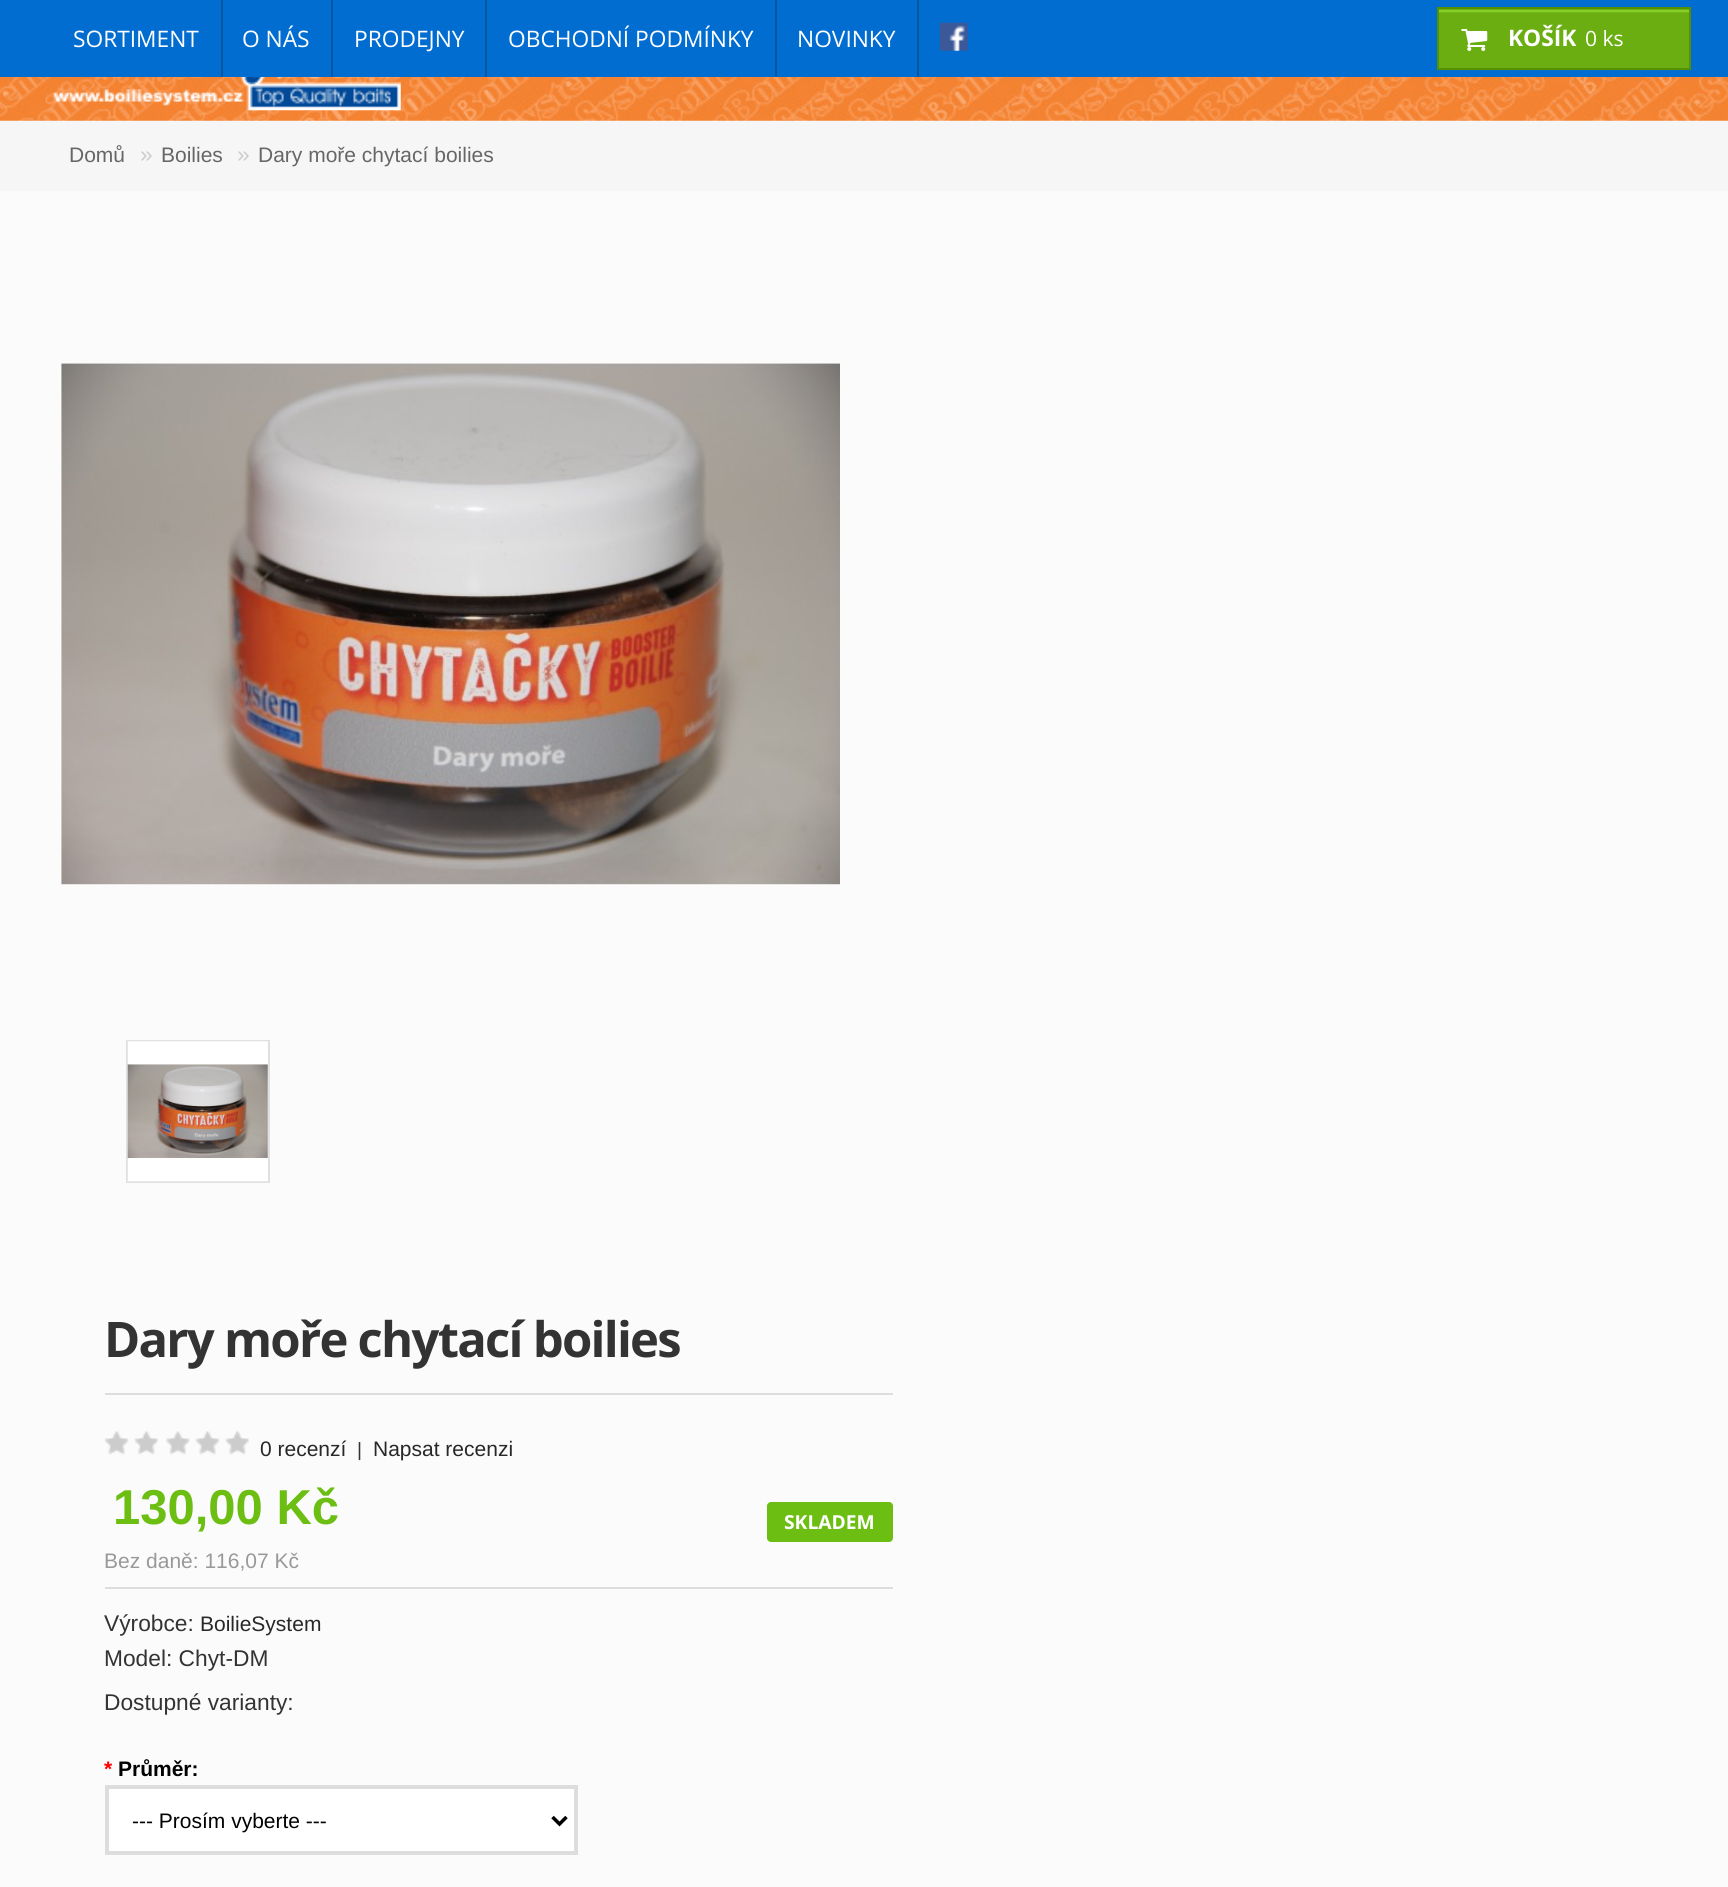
import math
import cairo

surface = cairo.ImageSurface(cairo.FORMAT_RGB24, 1728, 1887)
ctx = cairo.Context(surface)
options = cairo.FontOptions()
options.set_hint_metrics(cairo.HINT_METRICS_OFF)
options.set_hint_style(cairo.HINT_STYLE_NONE)
ctx.set_font_options(options)
ctx.set_miter_limit(4)


def spaced_text(x, y, s, letter, word):
    ctx.move_to(x, y)
    for ch in s:
        ctx.show_text(ch)
        ctx.rel_move_to(letter + word * (ch == ' '), 0)


def round_rect(x, y, w, h, r):
    ctx.new_sub_path()
    for i, (u, v) in enumerate([(x + w - r, y + h - r), (x + r, y + h - r), (x + r, y + r), (x + w - r, y + r)]):
        ctx.arc(u, v, r, i * math.pi / 2, (i + 1) * math.pi / 2)
    ctx.close_path()


def picture(path, x, y, w, h):
    ctx.save()
    ctx.set_source_surface(cairo.ImageSurface.create_from_png(path), x, y)
    ctx.rectangle(x, y, w, h)
    ctx.fill()
    ctx.restore()


ctx.set_source_rgb(0.984, 0.984, 0.984)
ctx.paint()
ctx.set_source_rgb(0.004, 0.427, 0.82)
ctx.rectangle(0, 0, 1728, 77)
ctx.fill()
ctx.set_source_rgb(0.02, 0.333, 0.631)
ctx.rectangle(221, 0, 2, 77)
ctx.fill()
ctx.select_font_face("Open Sans")
ctx.set_font_size(22.75)
ctx.set_source_rgb(1, 1, 1)
ctx.move_to(73, 47)
ctx.show_text("SORTIMENT")
ctx.set_source_rgb(0.02, 0.333, 0.631)
ctx.rectangle(331, 0, 2, 77)
ctx.fill()
ctx.set_source_rgb(1, 1, 1)
ctx.move_to(242, 47)
ctx.show_text("O NÁS")
ctx.set_source_rgb(0.02, 0.333, 0.631)
ctx.rectangle(485, 0, 2, 77)
ctx.fill()
ctx.set_source_rgb(1, 1, 1)
ctx.move_to(354, 47)
ctx.show_text("PRODEJNY")
ctx.set_source_rgb(0.02, 0.333, 0.631)
ctx.rectangle(775, 0, 2, 77)
ctx.fill()
ctx.set_source_rgb(1, 1, 1)
ctx.move_to(508, 47)
ctx.show_text("OBCHODNÍ PODMÍNKY")
ctx.set_source_rgb(0.02, 0.333, 0.631)
ctx.rectangle(917, 0, 2, 77)
ctx.fill()
ctx.set_source_rgb(1, 1, 1)
ctx.move_to(797, 47)
ctx.show_text("NOVINKY")
picture("img1.png", 939, 22, 29, 29)
gradient = cairo.LinearGradient(1564, 9, 1564, 68)
gradient.add_color_stop_rgba(0.01, 0.416, 0.682, 0.071, 1)
gradient.add_color_stop_rgba(0.03, 0.569, 0.859, 0.188, 1)
gradient.add_color_stop_rgba(0.07, 0.416, 0.682, 0.071, 1)
gradient.add_color_stop_rgba(1, 0.416, 0.682, 0.071, 1)
ctx.set_source(gradient)
ctx.rectangle(1439, 9, 250, 59)
ctx.fill()
ctx.rectangle(1438, 8, 252, 61)
ctx.set_source_rgb(0.325, 0.569, 0.008)
ctx.stroke()
picture("img2.png", 1461, 29, 27, 22)
ctx.select_font_face("Open Sans", cairo.FONT_SLANT_NORMAL, cairo.FONT_WEIGHT_BOLD)
ctx.set_source_rgb(1, 1, 1)
ctx.move_to(1508, 46)
ctx.show_text("KOŠÍK")
ctx.select_font_face("Open Sans")
ctx.set_font_size(21)
ctx.move_to(1585, 46)
ctx.show_text("0 ks")
picture("img3.png", 0, 77, 1728, 44)
picture("img4.png", 52, 77, 349, 34)
ctx.set_source_rgb(0.961, 0.961, 0.961)
ctx.rectangle(0, 121, 1728, 70)
ctx.fill()
ctx.select_font_face("Liberation Sans")
ctx.set_source_rgb(0.4, 0.4, 0.4)
ctx.move_to(69, 162)
ctx.show_text("Domů")
ctx.set_font_size(22.75)
ctx.set_source_rgb(0.8, 0.8, 0.8)
ctx.move_to(140, 162)
ctx.show_text("»")
ctx.set_font_size(21)
ctx.set_source_rgb(0.4, 0.4, 0.4)
ctx.move_to(161, 162)
ctx.show_text("Boilies")
ctx.set_font_size(22.75)
ctx.set_source_rgb(0.8, 0.8, 0.8)
ctx.move_to(237, 162)
ctx.show_text("»")
ctx.set_font_size(21)
ctx.set_source_rgb(0.4, 0.4, 0.4)
ctx.move_to(258, 162)
ctx.show_text("Dary moře chytací boilies")
picture("img5.png", 61, 363, 779, 522)
ctx.rectangle(127, 1041, 142, 141)
ctx.set_source_rgb(0.878, 0.878, 0.878)
ctx.stroke()
picture("img6.png", 127, 1041, 141, 141)
ctx.set_source_rgb(0.867, 0.867, 0.867)
ctx.rectangle(105, 1393, 788, 2)
ctx.fill()
ctx.select_font_face("Open Sans", cairo.FONT_SLANT_NORMAL, cairo.FONT_WEIGHT_BOLD)
ctx.set_font_size(49)
ctx.set_source_rgb(0.2, 0.2, 0.2)
spaced_text(104, 1357, "Dary moře chytací boilies", -1.75, 0)
picture("img7.png", 105, 1431, 144, 24)
ctx.select_font_face("Liberation Sans")
ctx.set_font_size(21)
ctx.set_source_rgb(0.157, 0.157, 0.157)
ctx.move_to(260, 1456)
ctx.show_text("0 recenzí")
ctx.set_font_size(19.25)
ctx.set_source_rgb(0.2, 0.2, 0.2)
ctx.move_to(357, 1456)
ctx.show_text("|")
ctx.set_font_size(21)
ctx.set_source_rgb(0.157, 0.157, 0.157)
ctx.move_to(373, 1456)
ctx.show_text("Napsat recenzi")
ctx.set_source_rgb(0.867, 0.867, 0.867)
ctx.rectangle(105, 1587, 788, 2)
ctx.fill()
ctx.select_font_face("Liberation Sans", cairo.FONT_SLANT_NORMAL, cairo.FONT_WEIGHT_BOLD)
ctx.set_font_size(49)
ctx.set_source_rgb(0.427, 0.745, 0.078)
ctx.move_to(113, 1524)
ctx.show_text("130,00 Kč")
ctx.select_font_face("Liberation Sans")
ctx.set_font_size(21)
ctx.set_source_rgb(0.6, 0.6, 0.6)
ctx.move_to(104, 1568)
ctx.show_text("Bez daně: 116,07 Kč")
ctx.set_source_rgb(0.427, 0.745, 0.078)
round_rect(767, 1502, 126, 40, 4)
ctx.fill()
ctx.select_font_face("Open Sans", cairo.FONT_SLANT_NORMAL, cairo.FONT_WEIGHT_BOLD)
ctx.set_font_size(19.25)
ctx.set_source_rgb(1, 1, 1)
ctx.move_to(784, 1529)
ctx.show_text("SKLADEM")
ctx.select_font_face("Liberation Sans")
ctx.set_font_size(22.75)
ctx.set_source_rgb(0.2, 0.2, 0.2)
ctx.move_to(104, 1631)
ctx.show_text("Výrobce:")
ctx.set_font_size(21)
ctx.set_source_rgb(0.157, 0.157, 0.157)
ctx.move_to(200, 1631)
ctx.show_text("BoilieSystem")
ctx.set_font_size(22.75)
ctx.set_source_rgb(0.2, 0.2, 0.2)
ctx.move_to(104, 1666)
ctx.show_text("Model: Chyt-DM")
ctx.move_to(104, 1710)
ctx.show_text("Dostupné varianty:")
ctx.select_font_face("Liberation Sans", cairo.FONT_SLANT_NORMAL, cairo.FONT_WEIGHT_BOLD)
ctx.set_font_size(21)
ctx.set_source_rgb(1, 0, 0)
ctx.move_to(104, 1776)
ctx.show_text("*")
ctx.set_source_rgb(0, 0, 0)
ctx.move_to(118, 1776)
ctx.show_text("Průměr:")
ctx.set_source_rgb(1, 1, 1)
ctx.rectangle(107, 1787, 469, 66)
ctx.fill_preserve()
ctx.set_source_rgb(0.867, 0.867, 0.867)
ctx.set_line_width(4)
ctx.stroke()
ctx.new_path()
ctx.move_to(552.5, 1817)
ctx.line_to(559.5, 1824)
ctx.line_to(566.5, 1817)
ctx.set_source_rgb(0, 0, 0)
ctx.set_line_width(3.5)
ctx.stroke()
ctx.select_font_face("Liberation Sans")
ctx.move_to(132, 1828)
ctx.show_text("--- Prosím vyberte ---")
surface.write_to_png("page.png")
